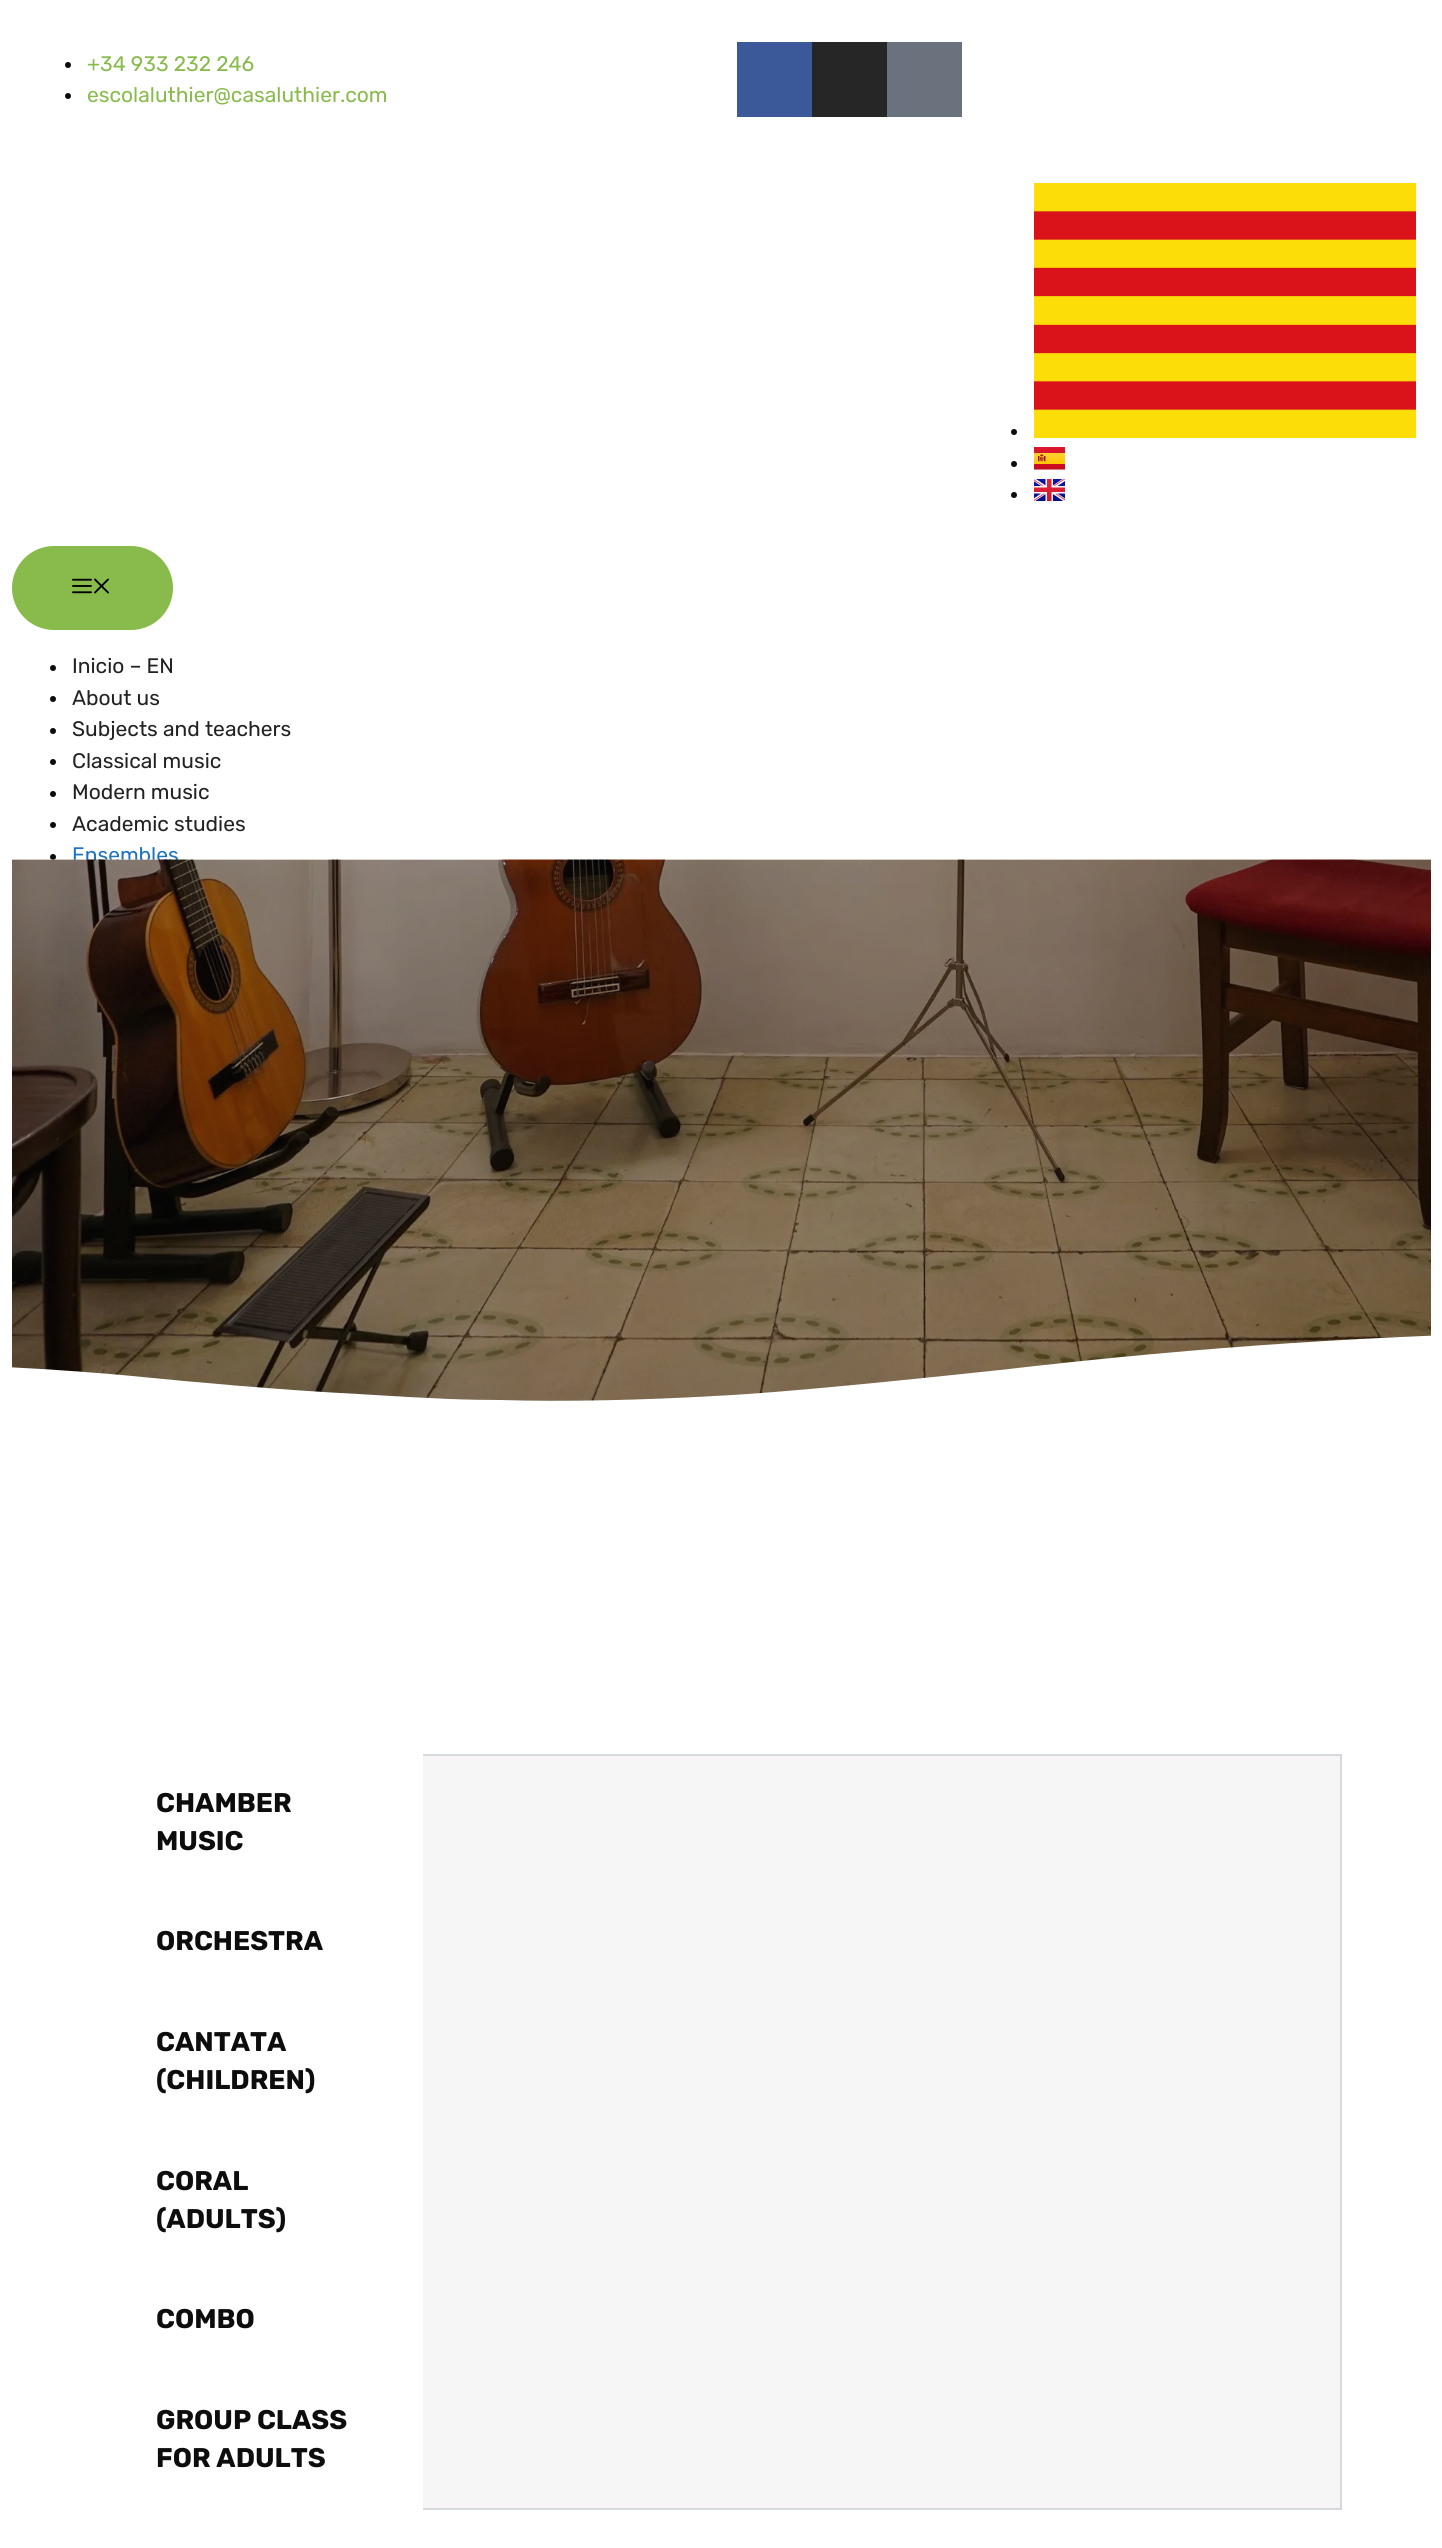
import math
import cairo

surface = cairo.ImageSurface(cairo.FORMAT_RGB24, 1442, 2548)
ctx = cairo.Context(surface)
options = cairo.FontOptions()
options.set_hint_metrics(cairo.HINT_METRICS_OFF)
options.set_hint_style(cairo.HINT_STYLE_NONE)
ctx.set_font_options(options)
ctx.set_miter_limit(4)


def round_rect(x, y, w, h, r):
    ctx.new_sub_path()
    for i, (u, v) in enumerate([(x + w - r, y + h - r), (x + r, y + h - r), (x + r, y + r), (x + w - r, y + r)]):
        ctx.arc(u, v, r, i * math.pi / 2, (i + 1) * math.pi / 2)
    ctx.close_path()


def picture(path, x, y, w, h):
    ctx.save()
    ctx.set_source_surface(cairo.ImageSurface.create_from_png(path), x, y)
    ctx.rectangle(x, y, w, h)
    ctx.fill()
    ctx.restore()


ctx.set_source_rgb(1, 1, 1)
ctx.paint()
ctx.set_source_rgb(0.051, 0.051, 0.051)
ctx.arc(68, 65, 3, 0, 2 * math.pi)
ctx.fill()
ctx.select_font_face("Rubik")
ctx.set_font_size(21)
ctx.set_source_rgb(0.533, 0.733, 0.294)
ctx.move_to(87, 71)
ctx.show_text("+34 933 232 246")
ctx.set_source_rgb(0.051, 0.051, 0.051)
ctx.new_path()
ctx.arc(68, 96, 3, 0, 2 * math.pi)
ctx.fill()
ctx.set_source_rgb(0.533, 0.733, 0.294)
ctx.move_to(87, 102)
ctx.show_text("escolaluthier@casaluthier.com")
ctx.set_source_rgb(0.231, 0.349, 0.596)
ctx.rectangle(737, 42, 75, 75)
ctx.fill()
ctx.set_source_rgb(0.149, 0.149, 0.149)
ctx.rectangle(812, 42, 75, 75)
ctx.fill()
ctx.set_source_rgb(0.412, 0.447, 0.49)
ctx.rectangle(887, 42, 75, 75)
ctx.fill()
ctx.set_source_rgb(0.988, 0.867, 0.035)
ctx.rectangle(1034, 183, 382, 255)
ctx.fill()
ctx.save()
ctx.rectangle(1034, 183, 382, 255)
ctx.clip()
ctx.new_path()
ctx.move_to(1033.5, 225.5)
ctx.line_to(1416, 225.5)
ctx.move_to(1416, 282)
ctx.line_to(1033.5, 282)
ctx.move_to(1033.5, 339)
ctx.line_to(1416, 339)
ctx.move_to(1416, 395.5)
ctx.line_to(1033.5, 395.5)
ctx.set_source_rgb(0.855, 0.071, 0.102)
ctx.set_line_width(28.3)
ctx.stroke()
ctx.restore()
ctx.set_source_rgb(0.051, 0.051, 0.051)
ctx.arc(1014, 432, 3, 0, 2 * math.pi)
ctx.fill()
ctx.arc(1014, 464, 3, 0, 2 * math.pi)
ctx.fill()
picture("img1.png", 1034, 447, 31, 23)
ctx.arc(1014, 495, 3, 0, 2 * math.pi)
ctx.fill()
picture("img2.png", 1034, 479, 31, 22)
ctx.set_source_rgb(0.533, 0.733, 0.294)
round_rect(12, 546, 161, 84, 42)
ctx.fill()
picture("img3.png", 72, 578, 20, 16)
picture("img4.png", 94, 578, 15, 16)
ctx.set_source_rgb(0.051, 0.051, 0.051)
ctx.arc(53, 668, 3, 0, 2 * math.pi)
ctx.fill()
ctx.set_source_rgb(0.133, 0.133, 0.133)
ctx.move_to(72, 673)
ctx.show_text("Inicio – EN")
ctx.set_source_rgb(0.051, 0.051, 0.051)
ctx.new_path()
ctx.arc(53, 699, 3, 0, 2 * math.pi)
ctx.fill()
ctx.set_source_rgb(0.133, 0.133, 0.133)
ctx.move_to(72, 705)
ctx.show_text("About us")
ctx.set_source_rgb(0.051, 0.051, 0.051)
ctx.new_path()
ctx.arc(53, 731, 3, 0, 2 * math.pi)
ctx.fill()
ctx.set_source_rgb(0.133, 0.133, 0.133)
ctx.move_to(72, 736)
ctx.show_text("Subjects and teachers")
ctx.set_source_rgb(0.051, 0.051, 0.051)
ctx.new_path()
ctx.arc(53, 762, 3, 0, 2 * math.pi)
ctx.fill()
ctx.set_source_rgb(0.133, 0.133, 0.133)
ctx.move_to(72, 768)
ctx.show_text("Classical music")
ctx.set_source_rgb(0.051, 0.051, 0.051)
ctx.new_path()
ctx.arc(53, 794, 3, 0, 2 * math.pi)
ctx.fill()
ctx.set_source_rgb(0.133, 0.133, 0.133)
ctx.move_to(72, 799)
ctx.show_text("Modern music")
ctx.set_source_rgb(0.051, 0.051, 0.051)
ctx.new_path()
ctx.arc(53, 825, 3, 0, 2 * math.pi)
ctx.fill()
ctx.set_source_rgb(0.133, 0.133, 0.133)
ctx.move_to(72, 831)
ctx.show_text("Academic studies")
ctx.set_source_rgb(0.051, 0.051, 0.051)
ctx.new_path()
ctx.arc(53, 857, 3, 0, 2 * math.pi)
ctx.fill()
ctx.set_source_rgb(0.118, 0.451, 0.745)
ctx.move_to(72, 862)
ctx.show_text("Ensembles")
picture("img5.png", 12, 859, 1419, 542)
ctx.save()
ctx.rectangle(12, 1331, 1419, 75)
ctx.clip()
ctx.set_source_rgb(1, 1, 1)
ctx.new_path()
ctx.move_to(500, 1400)
ctx.curve_to(564, 1402, 646, 1400, 714, 1396)
ctx.curve_to(781, 1393, 915, 1379, 1000, 1370)
ctx.curve_to(1215, 1345, 1379, 1336, 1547, 1332)
ctx.curve_to(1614, 1331, 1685, 1330, 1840, 1334)
ctx.curve_to(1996, 1339, 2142, 1353, 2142, 1353)
ctx.line_to(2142, 1405)
ctx.line_to(-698, 1405)
ctx.line_to(-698, 1382)
ctx.curve_to(-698, 1382, -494, 1358, -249, 1360)
ctx.curve_to(-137, 1360, 15, 1365, 132, 1376)
ctx.curve_to(192, 1382, 280, 1390, 358, 1394)
ctx.curve_to(436, 1399, 470, 1400, 500, 1400)
ctx.close_path()
ctx.fill()
ctx.restore()
ctx.select_font_face("Rubik", cairo.FONT_SLANT_NORMAL, cairo.FONT_WEIGHT_BOLD)
ctx.set_font_size(27)
ctx.set_source_rgb(0.051, 0.051, 0.051)
ctx.move_to(156, 1812)
ctx.show_text("CHAMBER")
ctx.move_to(156, 1850)
ctx.show_text("MUSIC")
ctx.move_to(156, 1950)
ctx.show_text("ORCHESTRA")
ctx.move_to(156, 2051)
ctx.show_text("CANTATA")
ctx.move_to(156, 2089)
ctx.show_text("(CHILDREN)")
ctx.move_to(156, 2190)
ctx.show_text("CORAL")
ctx.move_to(156, 2228)
ctx.show_text("(ADULTS)")
ctx.move_to(156, 2328)
ctx.show_text("COMBO")
ctx.move_to(156, 2429)
ctx.show_text("GROUP CLASS")
ctx.move_to(156, 2467)
ctx.show_text("FOR ADULTS")
ctx.set_source_rgb(0.961, 0.961, 0.961)
ctx.rectangle(423, 1756, 917, 752)
ctx.fill()
ctx.set_source_rgb(0.835, 0.847, 0.863)
ctx.rectangle(423, 1754, 918, 2)
ctx.fill()
ctx.rectangle(1340, 1754, 2, 756)
ctx.fill()
ctx.rectangle(423, 2508, 918, 2)
ctx.fill()
surface.write_to_png("page.png")
